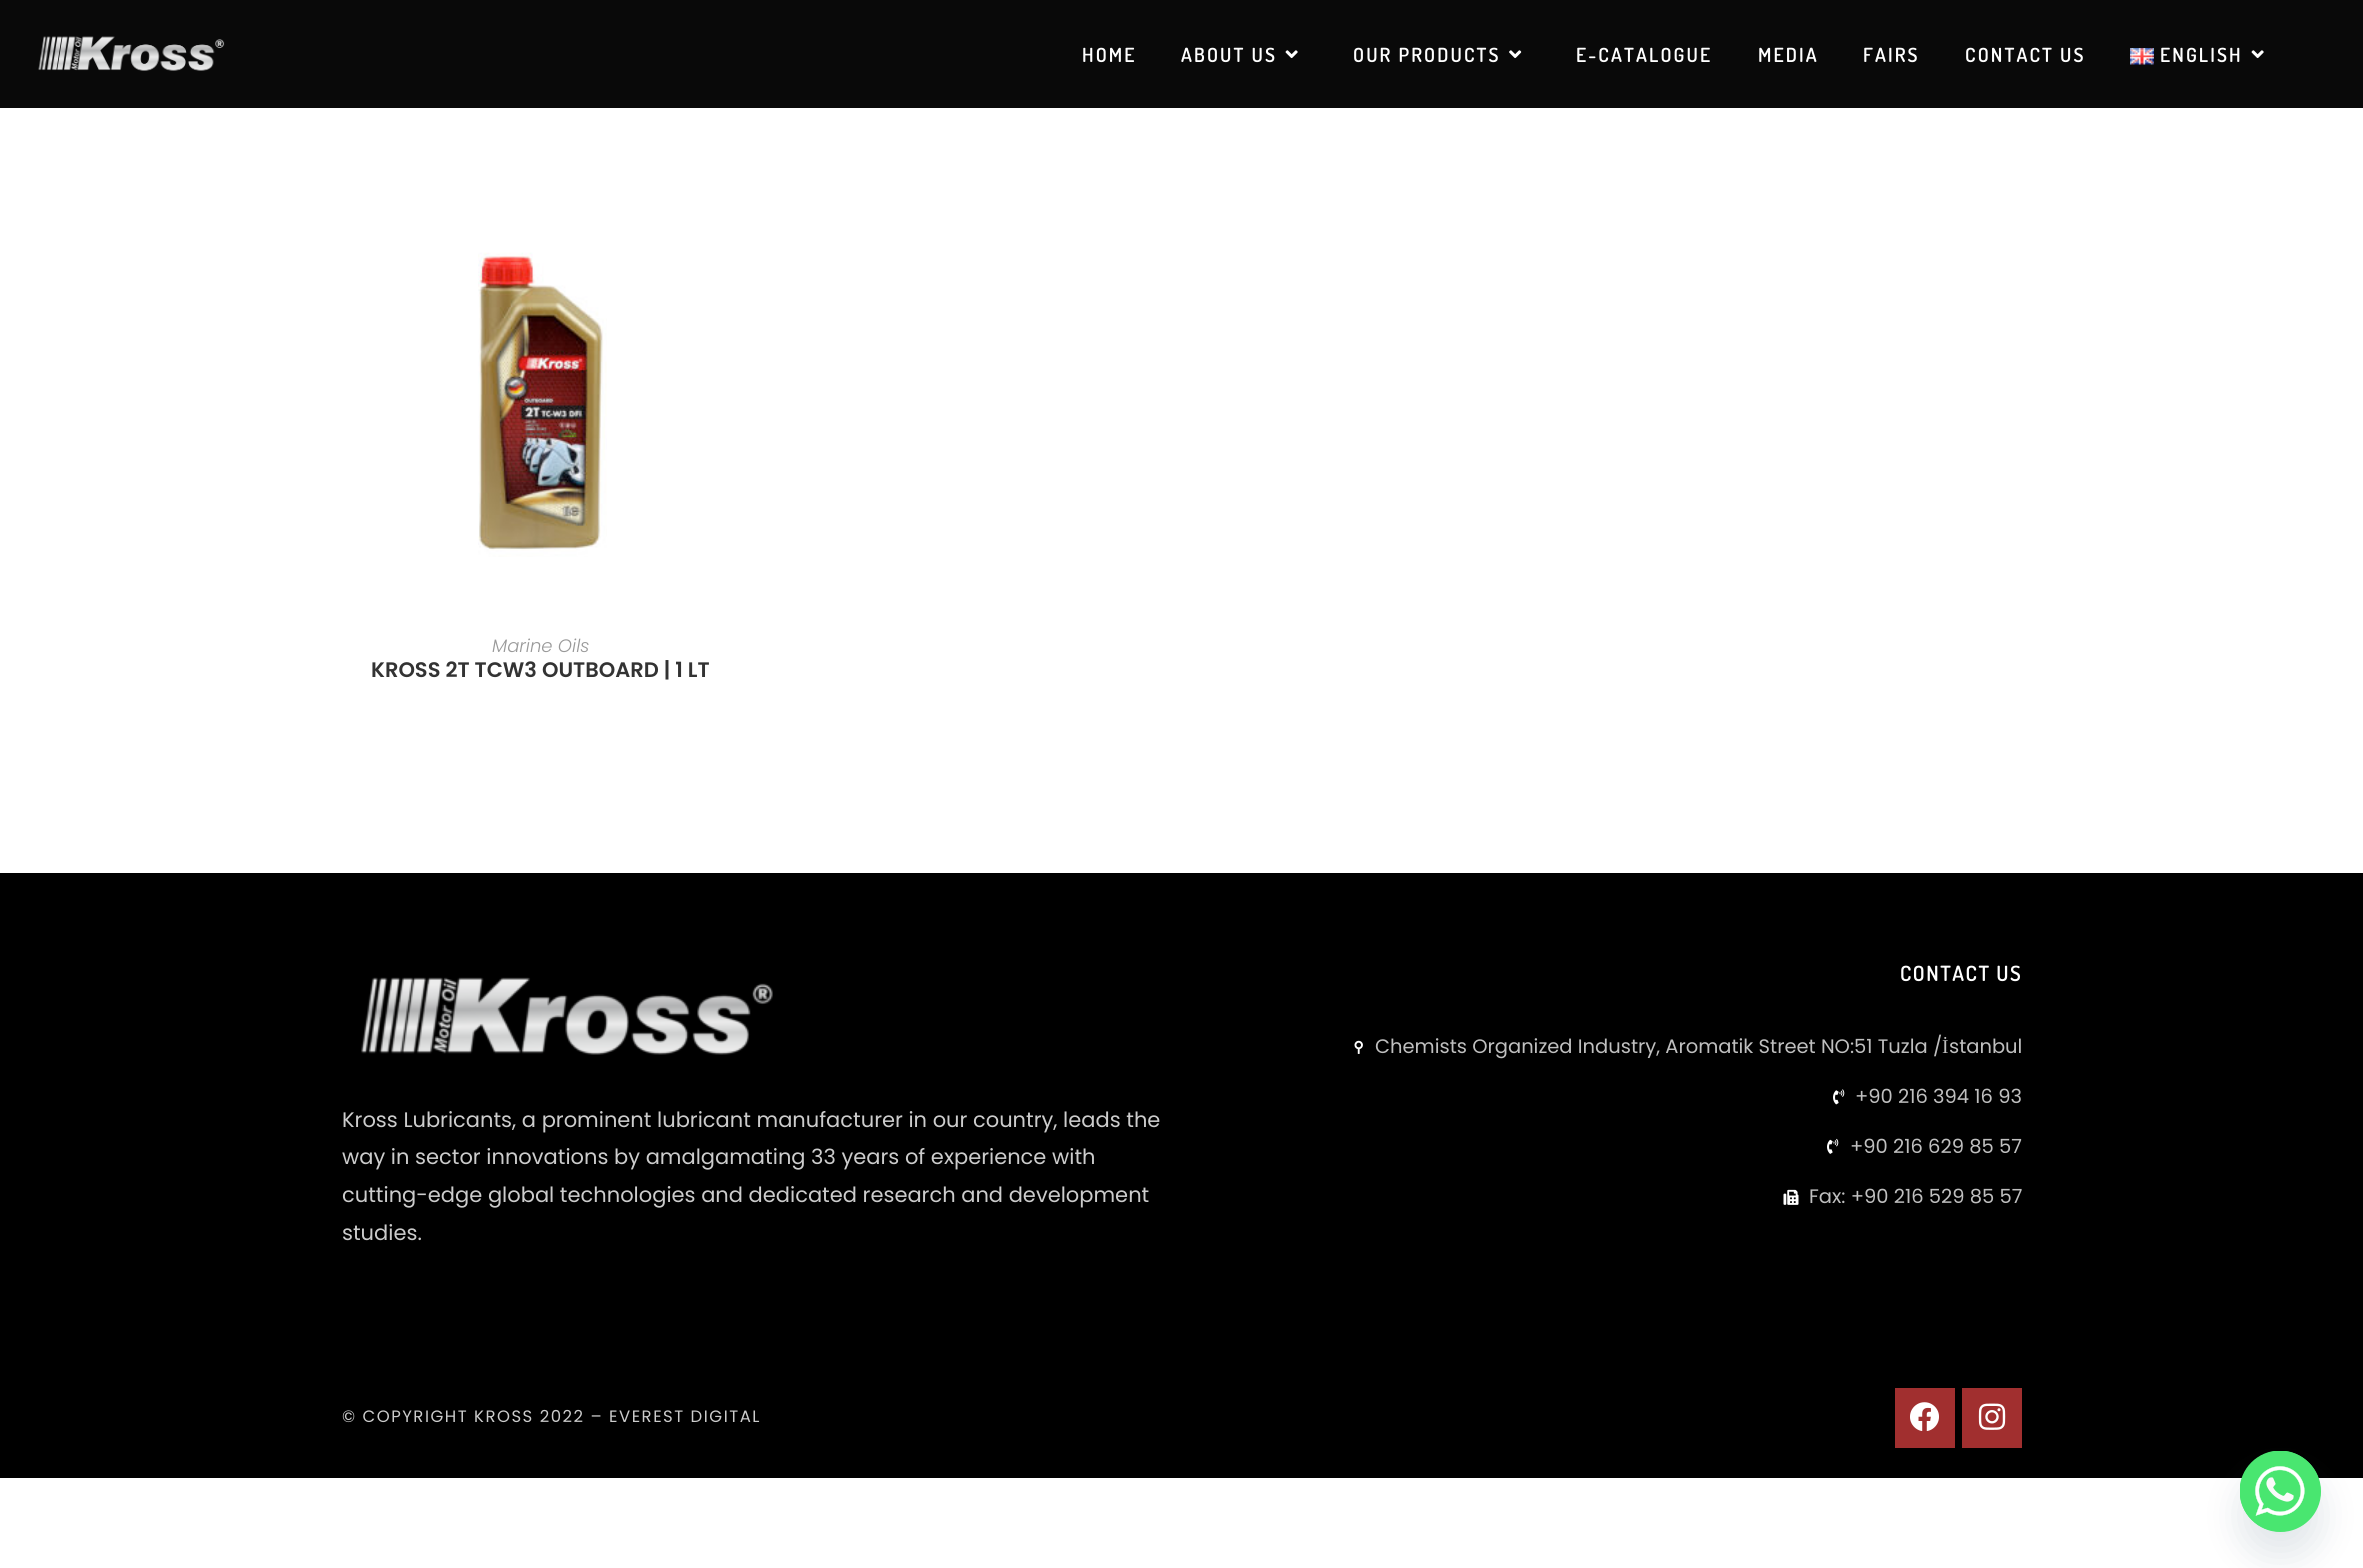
import math
import cairo

surface = cairo.ImageSurface(cairo.FORMAT_RGB24, 2363, 1568)
ctx = cairo.Context(surface)
options = cairo.FontOptions()
options.set_hint_metrics(cairo.HINT_METRICS_OFF)
options.set_hint_style(cairo.HINT_STYLE_NONE)
ctx.set_font_options(options)
ctx.set_miter_limit(4)


def spaced_text(x, y, s, letter, word):
    ctx.move_to(x, y)
    for ch in s:
        ctx.show_text(ch)
        ctx.rel_move_to(letter + word * (ch == ' '), 0)


def round_rect(x, y, w, h, r):
    ctx.new_sub_path()
    for i, (u, v) in enumerate([(x + w - r, y + h - r), (x + r, y + h - r), (x + r, y + r), (x + w - r, y + r)]):
        ctx.arc(u, v, r, i * math.pi / 2, (i + 1) * math.pi / 2)
    ctx.close_path()


def shadow(x, y, w, h, r, blur, alpha):
    ctx.push_group_with_content(cairo.CONTENT_ALPHA)
    ctx.set_operator(cairo.OPERATOR_SOURCE)
    for i in range(15, -16, -2):
        e = blur * i / 6
        if min(w, h) + 2 * e > 0:
            ctx.set_source_rgba(0, 0, 0, alpha * math.erfc((i - 1) / 8.5) / 2)
            round_rect(x - e, y - e, w + 2 * e, h + 2 * e, max(0, min(r + e + blur * .6, min(w, h) / 2 + e)))
            ctx.fill()
    ctx.mask(ctx.pop_group())


def picture(path, x, y, w, h):
    ctx.save()
    ctx.set_source_surface(cairo.ImageSurface.create_from_png(path), x, y)
    ctx.rectangle(x, y, w, h)
    ctx.fill()
    ctx.restore()


ctx.set_source_rgb(1, 1, 1)
ctx.paint()
ctx.set_source_rgb(0.039, 0.039, 0.039)
ctx.rectangle(0, 0, 2363, 108)
ctx.fill()
picture("img1.png", 38, 36, 187, 35)
ctx.select_font_face("Dosis SemiBold")
ctx.set_font_size(19.5)
ctx.set_source_rgb(1, 1, 1)
spaced_text(1082, 62, "HOME", 2.1, 0)
spaced_text(1181, 62, "ABOUT US", 2.1, 0)
picture("img2.png", 1285, 50, 13, 9)
spaced_text(1353, 62, "OUR PRODUCTS", 2.1, 0)
picture("img3.png", 1509, 50, 13, 9)
spaced_text(1576, 62, "E-CATALOGUE", 2.1, 0)
spaced_text(1758, 62, "MEDIA", 2.1, 0)
spaced_text(1863, 62, "FAIRS", 2.1, 0)
spaced_text(1965, 62, "CONTACT US", 2.1, 0)
picture("img4.png", 2130, 48, 24, 17)
spaced_text(2160, 62, "ENGLISH", 2.1, 0)
picture("img2.png", 2251, 50, 13, 9)
picture("img5.png", 478, 252, 129, 305)
ctx.select_font_face("Poppins Light", cairo.FONT_SLANT_ITALIC)
ctx.set_font_size(18)
ctx.set_source_rgb(0.6, 0.6, 0.6)
ctx.move_to(492, 652)
ctx.show_text("Marine Oils")
ctx.select_font_face("Poppins SemiBold")
ctx.set_font_size(21)
ctx.set_source_rgb(0.2, 0.2, 0.2)
ctx.move_to(371, 677)
ctx.show_text("KROSS 2T TCW3 OUTBOARD | 1 LT")
ctx.set_source_rgb(0, 0, 0)
ctx.rectangle(0, 873, 2363, 605)
ctx.fill()
picture("img6.png", 361, 977, 412, 78)
ctx.select_font_face("Poppins")
ctx.set_source_rgb(0.8, 0.8, 0.8)
ctx.move_to(342, 1127)
ctx.show_text("Kross Lubricants, a prominent lubricant manufacturer in our country, leads the")
ctx.move_to(342, 1164)
ctx.show_text("way in sector innovations by amalgamating 33 years of experience with")
ctx.move_to(342, 1202)
ctx.show_text("cutting-edge global technologies and dedicated research and development")
ctx.move_to(342, 1240)
ctx.show_text("studies.")
ctx.select_font_face("Dosis SemiBold")
ctx.set_source_rgb(1, 1, 1)
spaced_text(1900, 981, "CONTACT US", 1.5, 0)
picture("img7.png", 1354, 1040, 9, 14)
ctx.select_font_face("Poppins")
ctx.set_font_size(19.5)
ctx.set_source_rgb(0.749, 0.749, 0.749)
ctx.move_to(1375, 1053)
ctx.show_text("Chemists Organized Industry, Aromatik Street NO:51 Tuzla /")
ctx.select_font_face("Liberation Serif")
ctx.move_to(1942, 1053)
ctx.show_text("İ")
ctx.select_font_face("Poppins")
ctx.move_to(1949, 1053)
ctx.show_text("stanbul")
picture("img8.png", 1833, 1089, 12, 16)
ctx.move_to(1855, 1103)
ctx.show_text("+90 216 394 16 93")
picture("img9.png", 1827, 1138, 12, 16)
ctx.move_to(1850, 1153)
ctx.show_text("+90 216 629 85 57")
picture("img10.png", 1783, 1189, 16, 16)
ctx.move_to(1809, 1203)
ctx.show_text("Fax: +90 216 529 85 57")
ctx.set_font_size(16.5)
ctx.set_source_rgb(0.8, 0.8, 0.8)
spaced_text(342, 1422, "© COPYRIGHT KROSS 2022 – EVEREST DIGITAL", 1.5, 0)
ctx.set_source_rgb(0.631, 0.184, 0.184)
ctx.rectangle(1895, 1388, 60, 60)
ctx.fill()
picture("img11.png", 1910, 1402, 29, 29)
ctx.rectangle(1962, 1388, 60, 60)
ctx.fill()
picture("img12.png", 1978, 1403, 28, 27)
ctx.set_source_rgb(0.286, 0.408, 0.494)
shadow(2240, 1475, 81, 81, 40.5, 18, 0.16)
ctx.set_source_rgb(0.286, 0.902, 0.439)
ctx.arc(2280.5, 1491.5, 40.5, 0, 2 * math.pi)
ctx.fill()
picture("img13.png", 2240, 1451, 81, 81)
surface.write_to_png("page.png")
